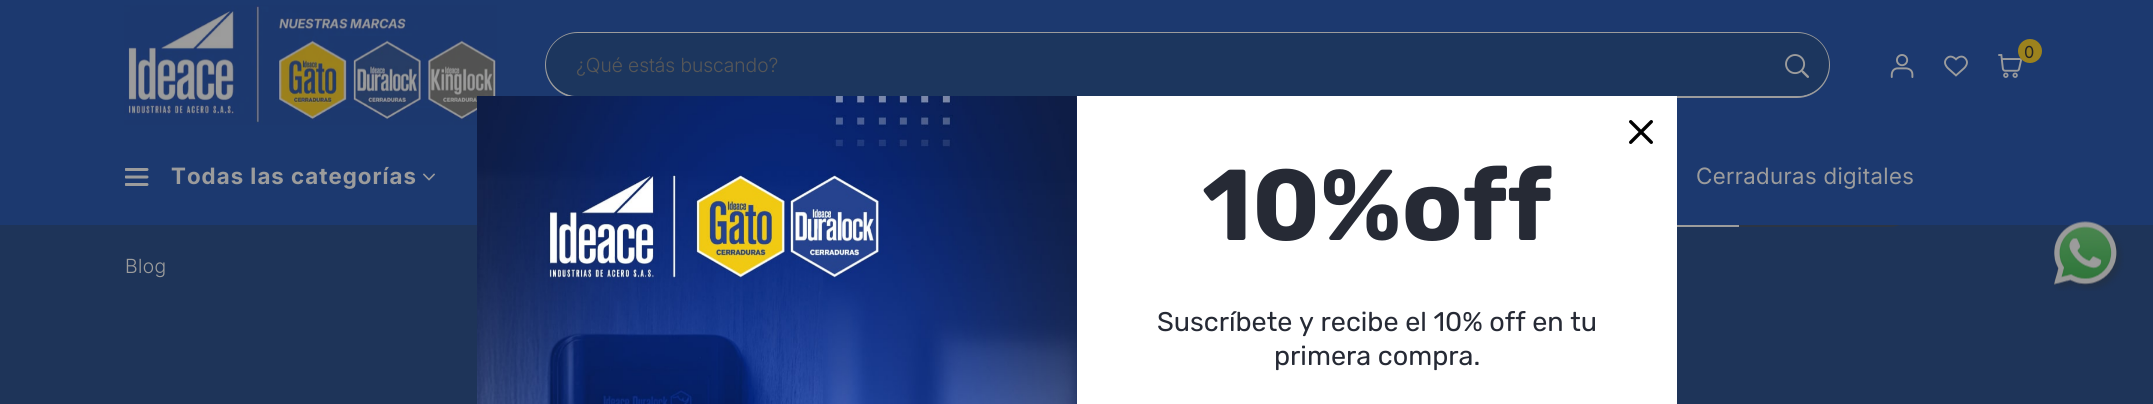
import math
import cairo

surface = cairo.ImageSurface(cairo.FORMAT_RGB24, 2153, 404)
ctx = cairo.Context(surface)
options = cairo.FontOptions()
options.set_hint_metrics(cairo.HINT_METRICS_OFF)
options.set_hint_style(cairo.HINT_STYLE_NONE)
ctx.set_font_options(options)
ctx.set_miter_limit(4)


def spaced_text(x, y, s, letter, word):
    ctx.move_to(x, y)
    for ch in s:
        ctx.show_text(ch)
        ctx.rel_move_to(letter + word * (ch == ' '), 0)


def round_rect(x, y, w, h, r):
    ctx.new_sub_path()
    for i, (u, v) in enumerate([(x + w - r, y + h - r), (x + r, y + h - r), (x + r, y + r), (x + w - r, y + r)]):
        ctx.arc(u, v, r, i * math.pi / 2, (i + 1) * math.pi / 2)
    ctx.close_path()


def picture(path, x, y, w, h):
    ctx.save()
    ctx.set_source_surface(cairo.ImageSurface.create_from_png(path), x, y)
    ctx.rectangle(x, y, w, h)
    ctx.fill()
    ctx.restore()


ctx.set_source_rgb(0.118, 0.204, 0.349)
ctx.paint()
ctx.set_source_rgb(0.173, 0.208, 0.267)
ctx.new_path()
ctx.move_to(1739, 167)
ctx.line_to(1889, 167)
ctx.curve_to(1905.5, 167, 1919, 180.5, 1919, 197)
ctx.curve_to(1919, 213.5, 1905.5, 227, 1889, 227)
ctx.line_to(1739, 227)
ctx.close_path()
ctx.fill()
ctx.set_source_rgb(0.11, 0.224, 0.435)
ctx.rectangle(0, 0, 2153, 225)
ctx.fill()
picture("img1.png", 124, 5, 373, 120)
picture("img2.png", 1998, 54, 24, 24)
ctx.set_source_rgb(0.612, 0.51, 0.114)
ctx.arc(2030, 51, 12, 0, 2 * math.pi)
ctx.fill()
ctx.select_font_face("Inter", cairo.FONT_SLANT_NORMAL, cairo.FONT_WEIGHT_BOLD)
ctx.set_font_size(16)
ctx.set_source_rgb(0.145, 0.145, 0.145)
spaced_text(2024, 58, "0", 0.4, 0)
picture("img3.png", 1890, 54, 24, 24)
picture("img4.png", 1944, 55, 24, 22)
round_rect(546, 33, 1283, 64, 32)
ctx.set_source_rgb(0.612, 0.612, 0.612)
ctx.stroke()
ctx.set_source_rgb(0.11, 0.212, 0.369)
ctx.new_path()
ctx.move_to(577.5, 33)
ctx.line_to(1764, 33)
ctx.line_to(1764, 96)
ctx.line_to(577.5, 96)
ctx.curve_to(560, 96, 546, 82, 546, 64.5)
ctx.curve_to(546, 47, 560, 33, 577.5, 33)
ctx.close_path()
ctx.fill()
ctx.select_font_face("Inter Light")
ctx.set_font_size(19.5)
ctx.set_source_rgb(0.341, 0.341, 0.341)
ctx.move_to(576, 72)
ctx.show_text("¿Qué estás buscando?")
ctx.set_source_rgb(0.11, 0.212, 0.369)
ctx.new_path()
ctx.move_to(1764, 33)
ctx.line_to(1797.5, 33)
ctx.curve_to(1815, 33, 1829, 47, 1829, 64.5)
ctx.curve_to(1829, 82, 1815, 96, 1797.5, 96)
ctx.line_to(1764, 96)
ctx.close_path()
ctx.fill()
picture("img5.png", 1785, 54, 24, 24)
picture("img6.png", 125, 168, 24, 18)
ctx.select_font_face("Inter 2", cairo.FONT_SLANT_NORMAL, cairo.FONT_WEIGHT_BOLD)
ctx.set_font_size(22.5)
ctx.set_source_rgb(0.612, 0.612, 0.612)
spaced_text(171, 184, "Todas las categorías", 1.05, 0)
picture("img7.png", 423, 173, 12, 8)
ctx.select_font_face("Inter")
spaced_text(1696, 184, "Cerraduras digitales", 0.4, 0)
ctx.rectangle(1677, 225, 62, 2)
ctx.fill()
ctx.select_font_face("Inter Light")
ctx.set_font_size(19.5)
spaced_text(125, 273, "Blog", 0.4, 0)
ctx.set_source_rgb(1, 1, 1)
ctx.rectangle(1077, 96, 600, 308)
ctx.fill()
picture("img8.png", 1629, 120, 24, 24)
picture("img9.png", 477, 96, 600, 308)
ctx.select_font_face("Rubik", cairo.FONT_SLANT_NORMAL, cairo.FONT_WEIGHT_BOLD)
ctx.set_font_size(100.5)
ctx.set_source_rgb(0.149, 0.165, 0.208)
ctx.move_to(1202, 240)
ctx.show_text("10%off")
ctx.select_font_face("Rubik")
ctx.set_font_size(27)
ctx.move_to(1157, 331)
ctx.show_text("Suscríbete y recibe el 10% off en tu")
ctx.move_to(1274, 365)
ctx.show_text("primera compra.")
picture("img10.png", 2054, 221, 70, 70)
surface.write_to_png("page.png")
